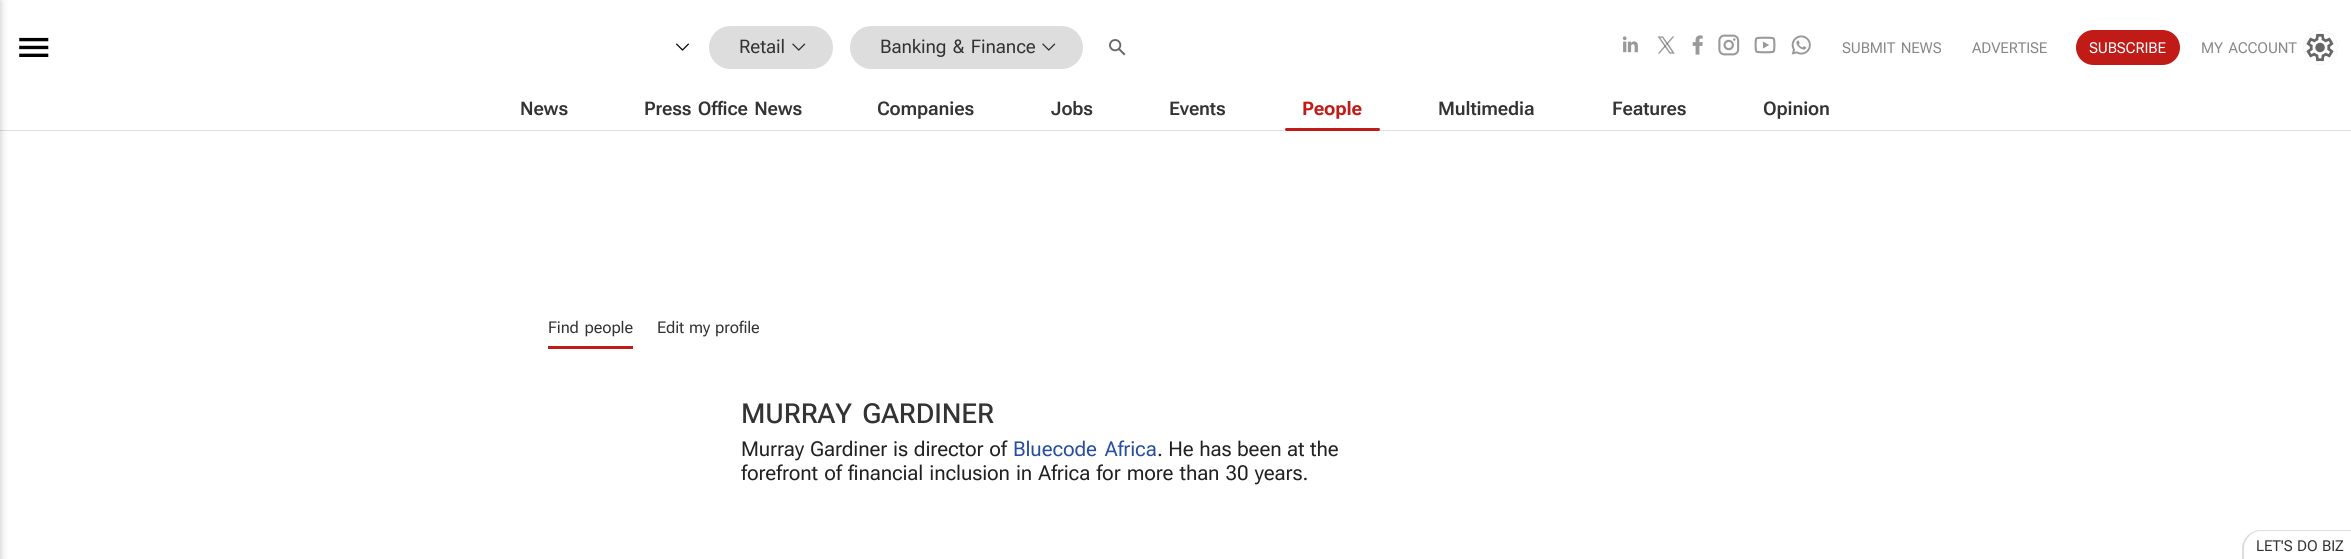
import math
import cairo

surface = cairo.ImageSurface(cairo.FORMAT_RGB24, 2351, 559)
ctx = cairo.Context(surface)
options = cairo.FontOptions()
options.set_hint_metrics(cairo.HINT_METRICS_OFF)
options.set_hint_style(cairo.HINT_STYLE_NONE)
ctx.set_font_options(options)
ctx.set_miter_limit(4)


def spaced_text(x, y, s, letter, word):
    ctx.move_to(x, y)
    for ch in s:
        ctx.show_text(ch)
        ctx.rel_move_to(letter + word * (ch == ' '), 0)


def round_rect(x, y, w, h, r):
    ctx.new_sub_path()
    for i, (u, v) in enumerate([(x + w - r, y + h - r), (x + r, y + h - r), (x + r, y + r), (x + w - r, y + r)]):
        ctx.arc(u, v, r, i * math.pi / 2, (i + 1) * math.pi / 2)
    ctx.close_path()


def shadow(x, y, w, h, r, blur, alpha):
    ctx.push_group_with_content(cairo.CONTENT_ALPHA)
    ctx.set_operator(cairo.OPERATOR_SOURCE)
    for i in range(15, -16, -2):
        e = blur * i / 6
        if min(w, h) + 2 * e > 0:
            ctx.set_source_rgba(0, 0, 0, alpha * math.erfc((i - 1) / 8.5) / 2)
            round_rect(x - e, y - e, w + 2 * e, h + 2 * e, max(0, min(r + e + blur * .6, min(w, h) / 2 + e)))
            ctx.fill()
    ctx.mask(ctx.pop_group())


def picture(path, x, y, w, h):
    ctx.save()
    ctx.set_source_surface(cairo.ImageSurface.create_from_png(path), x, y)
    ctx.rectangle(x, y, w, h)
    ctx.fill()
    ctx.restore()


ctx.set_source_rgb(1, 1, 1)
ctx.paint()
ctx.set_source_rgb(0.867, 0.867, 0.867)
ctx.rectangle(0, 130, 2351, 1)
ctx.fill()
ctx.set_source_rgb(0.125, 0.129, 0.141)
shadow(-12, 1, 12, 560, 0, 4, 0.28)
picture("img1.png", 19, 37, 30, 20)
picture("img2.png", 676, 43, 13, 8)
ctx.set_source_rgb(0.867, 0.867, 0.867)
round_rect(709, 26, 124, 43, 21.5)
ctx.fill()
ctx.select_font_face("Roboto Flex")
ctx.set_font_size(18.75)
ctx.set_source_rgb(0.2, 0.2, 0.2)
spaced_text(739, 53, "Retail", -0.12, 0)
picture("img3.png", 792, 43, 14, 8)
ctx.set_source_rgb(0.867, 0.867, 0.867)
round_rect(850, 26, 233, 43, 21.5)
ctx.fill()
ctx.set_source_rgb(0.2, 0.2, 0.2)
spaced_text(880, 53, "Banking & Finance", -0.12, 2)
picture("img3.png", 1042, 43, 14, 8)
picture("img4.png", 1109, 39, 17, 17)
picture("img5.png", 1622, 36, 16, 17)
picture("img6.png", 1657, 36, 18, 18)
picture("img7.png", 1692, 35, 11, 20)
picture("img8.png", 1718, 34, 22, 22)
picture("img9.png", 1754, 36, 22, 18)
picture("img10.png", 1791, 35, 20, 20)
ctx.set_font_size(15)
ctx.set_source_rgb(0.533, 0.533, 0.533)
spaced_text(1842, 53, "SUBMIT NEWS", -0.12, 2)
spaced_text(1972, 53, "ADVERTISE", -0.12, 0)
ctx.set_source_rgb(0.757, 0.106, 0.09)
round_rect(2076, 30, 104, 35, 17.5)
ctx.fill()
ctx.set_source_rgb(1, 1, 1)
spaced_text(2089, 53, "SUBSCRIBE", -0.12, 0)
ctx.set_source_rgb(0.533, 0.533, 0.533)
spaced_text(2201, 53, "MY ACCOUNT", -0.12, 2)
picture("img11.png", 2306, 33, 28, 29)
ctx.arc(2320.5, 47.5, 17, 0, 2 * math.pi)
ctx.set_source_rgb(0.961, 0.961, 0.961)
ctx.set_line_width(1)
ctx.stroke()
ctx.select_font_face("Roboto Flex SemiBold")
ctx.set_font_size(18.75)
ctx.set_source_rgb(0.2, 0.2, 0.2)
spaced_text(520, 115, "News", -0.12, 0)
spaced_text(644, 115, "Press Office News", -0.12, 2)
spaced_text(877, 115, "Companies", -0.12, 0)
spaced_text(1051, 115, "Jobs", -0.12, 0)
spaced_text(1169, 115, "Events", -0.12, 0)
ctx.select_font_face("Roboto Flex", cairo.FONT_SLANT_NORMAL, cairo.FONT_WEIGHT_BOLD)
ctx.set_source_rgb(0.757, 0.106, 0.09)
spaced_text(1302, 115, "People", -0.12, 0)
round_rect(1285, 128, 95, 3, 1.5)
ctx.fill()
ctx.select_font_face("Roboto Flex SemiBold")
ctx.set_source_rgb(0.2, 0.2, 0.2)
spaced_text(1438, 115, "Multimedia", -0.12, 0)
spaced_text(1612, 115, "Features", -0.12, 0)
spaced_text(1763, 115, "Opinion", -0.12, 0)
ctx.set_source_rgb(0.757, 0.106, 0.09)
ctx.rectangle(548, 346, 85, 3)
ctx.fill()
ctx.select_font_face("Roboto Flex")
ctx.set_font_size(16.25)
ctx.set_source_rgb(0.2, 0.2, 0.2)
spaced_text(548, 333, "Find people", -0.12, 2)
spaced_text(657, 333, "Edit my profile", -0.12, 1)
ctx.select_font_face("Roboto Flex Medium")
ctx.set_font_size(27.5)
spaced_text(741, 423, "MURRAY GARDINER", -0.12, 4)
ctx.select_font_face("Roboto Flex")
ctx.set_font_size(20.5)
ctx.set_source_rgb(0.125, 0.129, 0.133)
spaced_text(741, 456, "Murray Gardiner is director of", -0.12, 1)
ctx.set_source_rgb(0.149, 0.306, 0.627)
spaced_text(1013, 456, "Bluecode Africa", -0.12, 3)
ctx.set_source_rgb(0.125, 0.129, 0.133)
spaced_text(1157, 456, ". He has been at the", -0.12, 0.75)
spaced_text(741, 480, "forefront of financial inclusion in Africa for more than 30 years.", -0.12, 1.25)
ctx.set_source_rgb(0.867, 0.867, 0.867)
ctx.set_fill_rule(cairo.FILL_RULE_EVEN_ODD)
ctx.new_path()
ctx.move_to(2261, 530)
ctx.line_to(2351, 530)
ctx.line_to(2351, 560)
ctx.line_to(2242, 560)
ctx.line_to(2242, 549)
ctx.curve_to(2242, 538, 2251, 530, 2261, 530)
ctx.close_path()
ctx.move_to(2261, 531)
ctx.line_to(2351, 531)
ctx.line_to(2351, 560)
ctx.line_to(2244, 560)
ctx.line_to(2244, 549)
ctx.curve_to(2244, 539, 2252, 531, 2261, 531)
ctx.close_path()
ctx.fill()
ctx.set_font_size(15)
ctx.set_source_rgb(0.2, 0.2, 0.2)
spaced_text(2256, 551, "LET'S DO BIZ", -0.12, 1)
surface.write_to_png("page.png")
